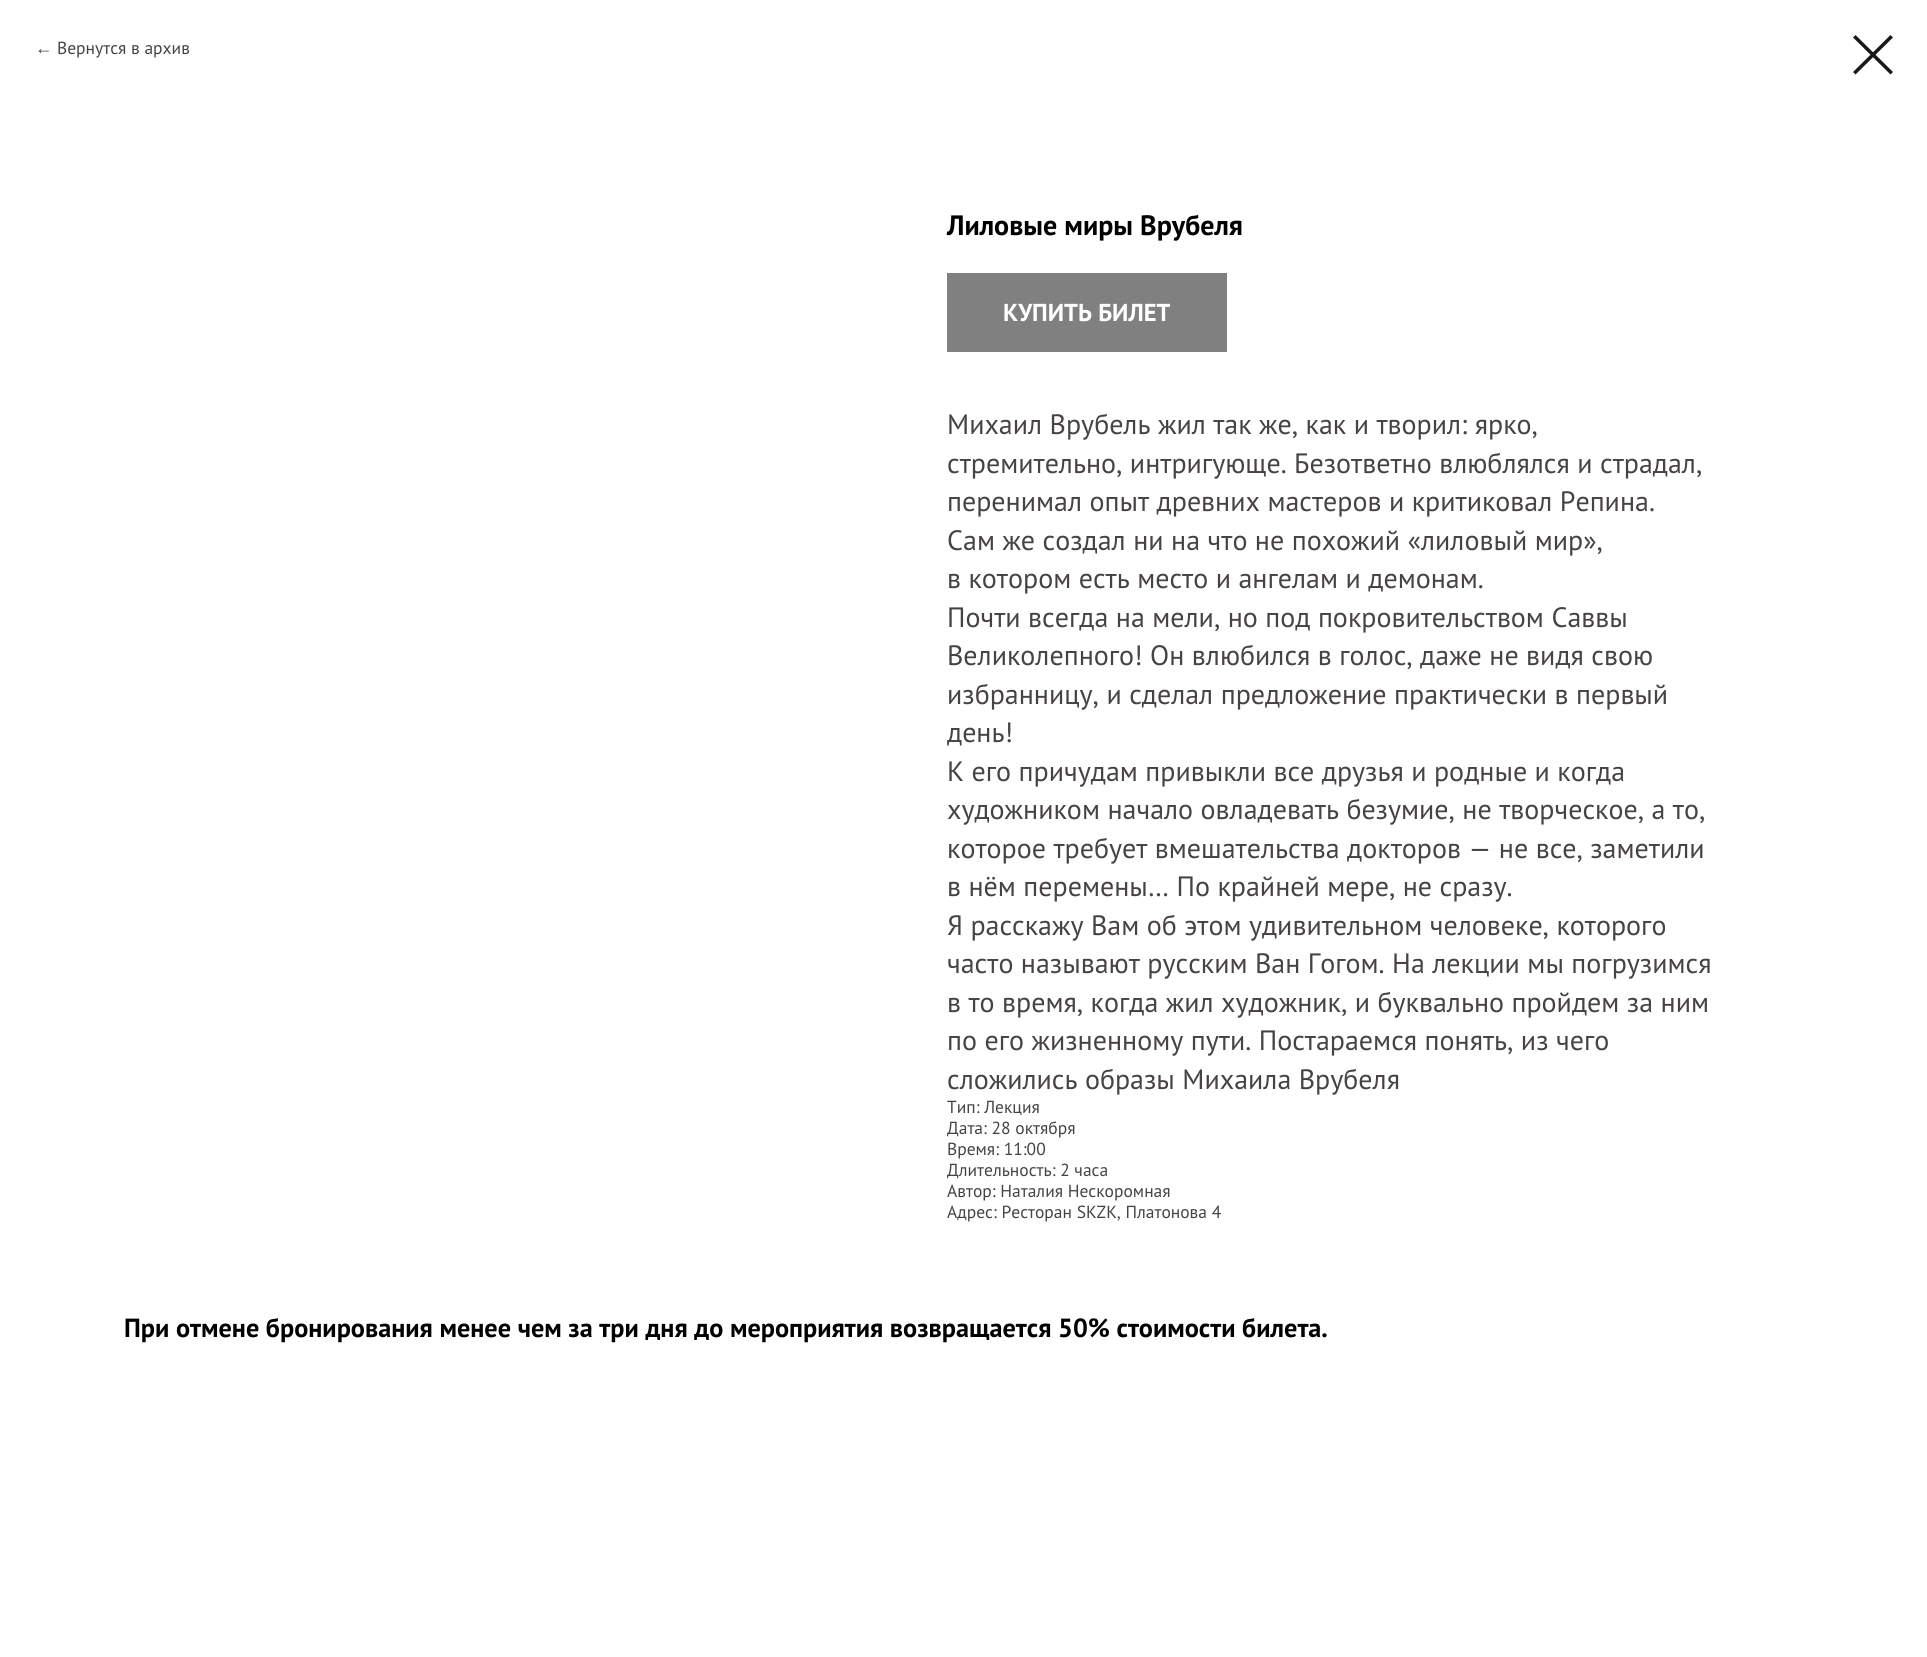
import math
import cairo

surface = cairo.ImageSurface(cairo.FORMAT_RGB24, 1927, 1657)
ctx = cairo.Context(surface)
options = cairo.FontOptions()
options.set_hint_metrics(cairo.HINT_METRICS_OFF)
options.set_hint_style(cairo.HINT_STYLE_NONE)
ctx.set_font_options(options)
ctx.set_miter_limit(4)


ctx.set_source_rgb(1, 1, 1)
ctx.paint()
ctx.select_font_face("Liberation Sans")
ctx.set_font_size(17.5)
ctx.set_source_rgb(0.282, 0.263, 0.263)
ctx.move_to(35, 54)
ctx.show_text("←")
ctx.select_font_face("PT Sans")
ctx.move_to(57, 54)
ctx.show_text("Вернутся в архив")
ctx.set_source_rgb(0.102, 0.094, 0.094)
ctx.set_fill_rule(cairo.FILL_RULE_EVEN_ODD)
ctx.new_path()
ctx.move_to(1853, 37.5)
ctx.line_to(1855.5, 35)
ctx.line_to(1893, 72)
ctx.line_to(1890.5, 74.5)
ctx.close_path()
ctx.fill()
ctx.new_path()
ctx.move_to(1890.5, 35)
ctx.line_to(1893, 37.5)
ctx.line_to(1855.5, 74.5)
ctx.line_to(1853, 72)
ctx.close_path()
ctx.fill()
ctx.select_font_face("PT Sans", cairo.FONT_SLANT_NORMAL, cairo.FONT_WEIGHT_BOLD)
ctx.set_font_size(28)
ctx.set_source_rgb(0, 0, 0)
ctx.move_to(947, 235)
ctx.show_text("Лиловые миры Врубеля")
ctx.set_source_rgb(0.502, 0.502, 0.502)
ctx.rectangle(947, 273, 280, 79)
ctx.fill()
ctx.set_font_size(24.5)
ctx.set_source_rgb(1, 1, 1)
ctx.move_to(1003, 321)
ctx.show_text("КУПИТЬ БИЛЕТ")
ctx.select_font_face("PT Sans")
ctx.set_font_size(28)
ctx.set_source_rgb(0.282, 0.263, 0.263)
ctx.move_to(947, 434)
ctx.show_text("Михаил Врубель жил так же, как и творил: ярко,")
ctx.move_to(947, 473)
ctx.show_text("стремительно, интригующе. Безответно влюблялся и страдал,")
ctx.move_to(947, 511)
ctx.show_text("перенимал опыт древних мастеров и критиковал Репина.")
ctx.move_to(947, 550)
ctx.show_text("Сам же создал ни на что не похожий «лиловый мир»,")
ctx.move_to(947, 588)
ctx.show_text("в котором есть место и ангелам и демонам.")
ctx.move_to(947, 627)
ctx.show_text("Почти всегда на мели, но под покровительством Саввы")
ctx.move_to(947, 665)
ctx.show_text("Великолепного! Он влюбился в голос, даже не видя свою")
ctx.move_to(947, 704)
ctx.show_text("избранницу, и сделал предложение практически в первый")
ctx.move_to(947, 742)
ctx.show_text("день!")
ctx.move_to(947, 781)
ctx.show_text("К его причудам привыкли все друзья и родные и когда")
ctx.move_to(947, 819)
ctx.show_text("художником начало овладевать безумие, не творческое, а то,")
ctx.move_to(947, 858)
ctx.show_text("которое требует вмешательства докторов — не все, заметили")
ctx.move_to(947, 896)
ctx.show_text("в нём перемены… По крайней мере, не сразу.")
ctx.move_to(947, 935)
ctx.show_text("Я расскажу Вам об этом удивительном человеке, которого")
ctx.move_to(947, 973)
ctx.show_text("часто называют русским Ван Гогом. На лекции мы погрузимся")
ctx.move_to(947, 1012)
ctx.show_text("в то время, когда жил художник, и буквально пройдем за ним")
ctx.move_to(947, 1050)
ctx.show_text("по его жизненному пути. Постараемся понять, из чего")
ctx.move_to(947, 1089)
ctx.show_text("сложились образы Михаила Врубеля")
ctx.set_font_size(17.5)
ctx.move_to(947, 1113)
ctx.show_text("Тип: Лекция")
ctx.move_to(947, 1134)
ctx.show_text("Дата: 28 октября")
ctx.move_to(947, 1155)
ctx.show_text("Время: 11:00")
ctx.move_to(947, 1176)
ctx.show_text("Длительность: 2 часа")
ctx.move_to(947, 1197)
ctx.show_text("Автор: Наталия Нескоромная")
ctx.move_to(947, 1218)
ctx.show_text("Адрес: Ресторан SKZK, Платонова 4")
ctx.select_font_face("PT Sans", cairo.FONT_SLANT_NORMAL, cairo.FONT_WEIGHT_BOLD)
ctx.set_font_size(26.25)
ctx.set_source_rgb(0, 0, 0)
ctx.move_to(124, 1337)
ctx.show_text("При отмене бронирования менее чем за три дня до мероприятия возвращается 50% стоимости билета.")
surface.write_to_png("page.png")
